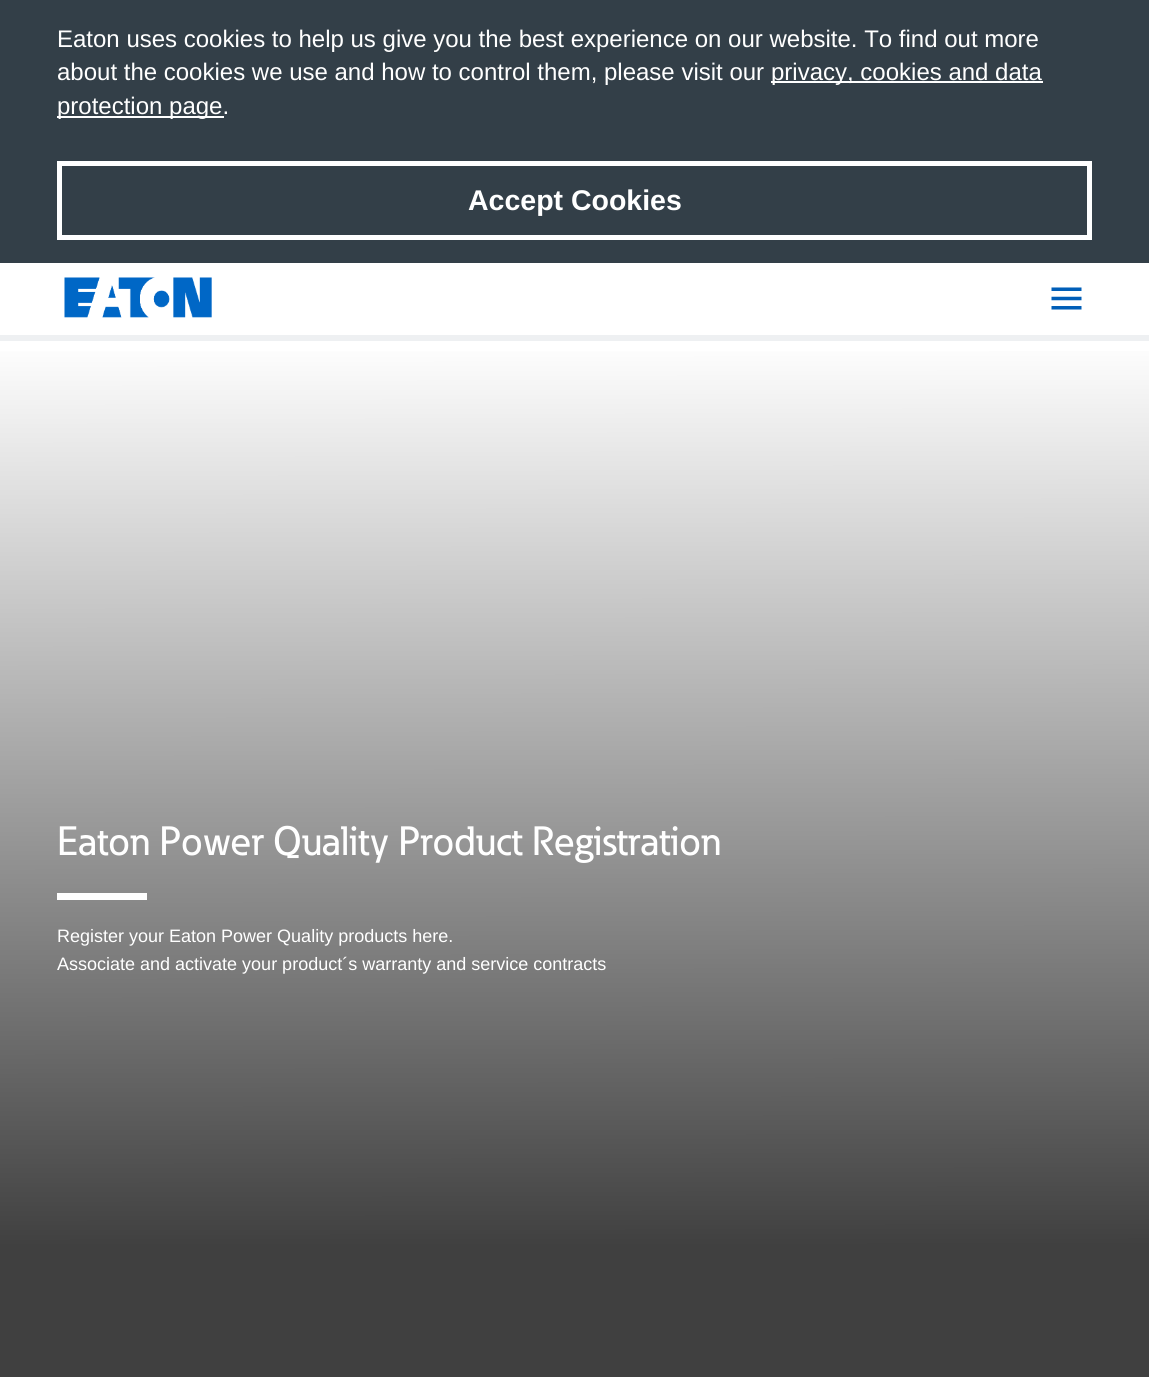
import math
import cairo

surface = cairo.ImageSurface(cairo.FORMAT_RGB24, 1149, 1377)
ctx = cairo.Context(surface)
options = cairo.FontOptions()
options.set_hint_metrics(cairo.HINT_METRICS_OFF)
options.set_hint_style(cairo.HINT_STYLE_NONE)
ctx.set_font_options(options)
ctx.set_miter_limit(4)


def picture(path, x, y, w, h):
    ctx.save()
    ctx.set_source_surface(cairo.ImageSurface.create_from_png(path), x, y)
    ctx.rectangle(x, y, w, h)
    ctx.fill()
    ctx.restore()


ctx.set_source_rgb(1, 1, 1)
ctx.paint()
ctx.set_source_rgb(0.2, 0.247, 0.282)
ctx.rectangle(0, 0, 1149, 263)
ctx.fill()
ctx.select_font_face("Liberation Sans")
ctx.set_font_size(24)
ctx.set_source_rgb(1, 1, 1)
ctx.move_to(57, 47)
ctx.show_text("Eaton uses cookies to help us give you the best experience on our website. To find out more")
ctx.move_to(57, 80)
ctx.show_text("about the cookies we use and how to control them, please visit our")
ctx.rectangle(771, 81, 272, 2)
ctx.fill()
ctx.move_to(771, 80)
ctx.show_text("privacy, cookies and data")
ctx.rectangle(57, 116, 167, 2)
ctx.fill()
ctx.move_to(57, 114)
ctx.show_text("protection page.")
ctx.rectangle(59.5, 163.5, 1030, 74)
ctx.set_line_width(5)
ctx.stroke()
ctx.select_font_face("Liberation Sans", cairo.FONT_SLANT_NORMAL, cairo.FONT_WEIGHT_BOLD)
ctx.set_font_size(28.5)
ctx.move_to(468, 210)
ctx.show_text("Accept Cookies")
picture("img1.png", 64, 277, 148, 41)
picture("img2.png", 1051, 287, 31, 23)
ctx.set_source_rgb(0.933, 0.941, 0.949)
ctx.rectangle(0, 335, 1149, 6)
ctx.fill()
gradient = cairo.LinearGradient(574, 340, 575, 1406)
gradient.add_color_stop_rgba(0, 1, 1, 1, 1)
gradient.add_color_stop_rgba(0.85, 0.251, 0.251, 0.251, 1)
gradient.add_color_stop_rgba(1, 0.251, 0.251, 0.251, 1)
ctx.set_source(gradient)
ctx.rectangle(0, 351, 1149, 1026)
ctx.fill()
ctx.select_font_face("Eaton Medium")
ctx.set_font_size(40.5)
ctx.set_source_rgb(1, 1, 1)
ctx.move_to(57, 855)
ctx.show_text("Eaton Power Quality Product Registration")
ctx.rectangle(57, 893, 90, 7)
ctx.fill()
ctx.select_font_face("Liberation Sans")
ctx.set_font_size(18)
ctx.move_to(57, 942)
ctx.show_text("Register your Eaton Power Quality products here.")
ctx.move_to(57, 970)
ctx.show_text("Associate and activate your product´s warranty and service contracts")
surface.write_to_png("page.png")
